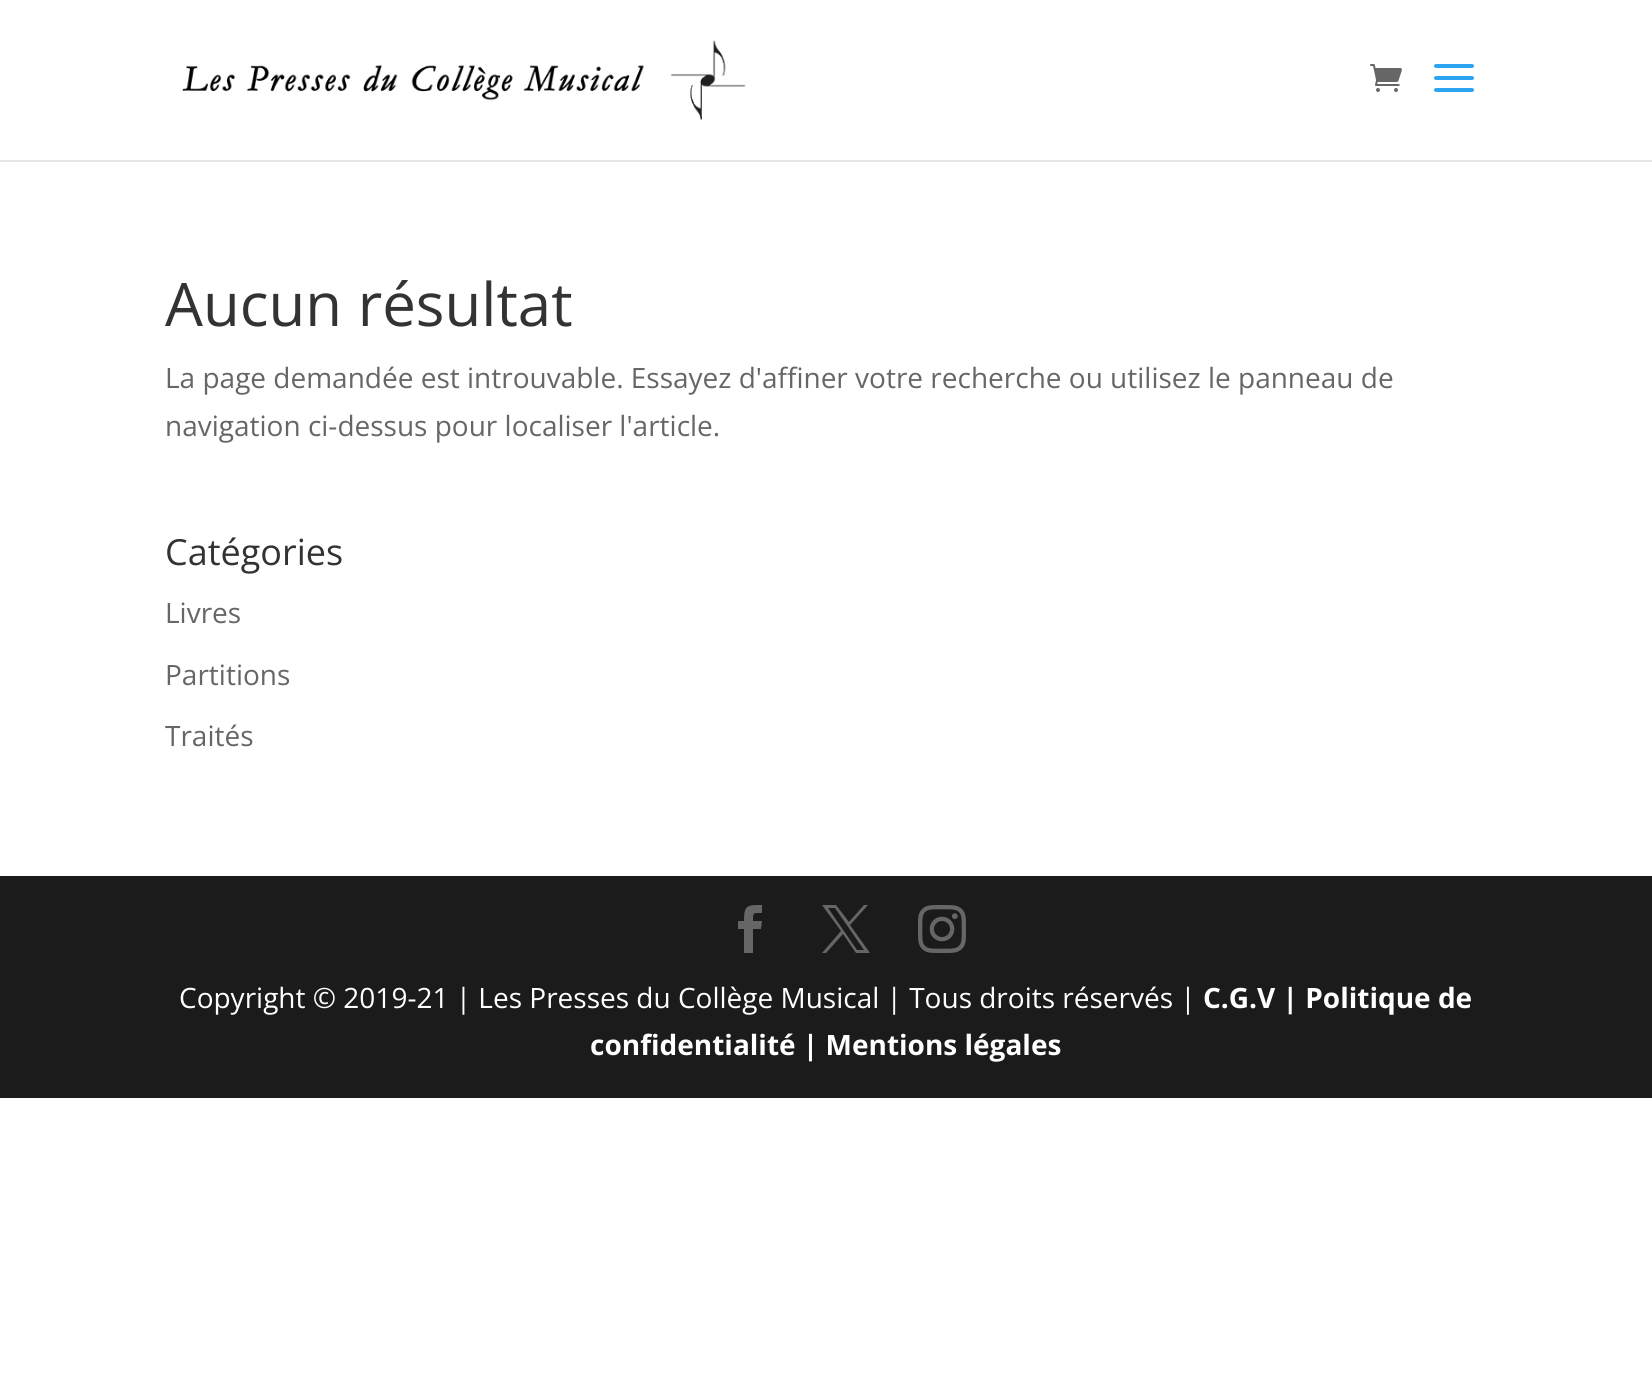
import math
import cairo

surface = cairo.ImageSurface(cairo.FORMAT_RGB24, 1652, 1374)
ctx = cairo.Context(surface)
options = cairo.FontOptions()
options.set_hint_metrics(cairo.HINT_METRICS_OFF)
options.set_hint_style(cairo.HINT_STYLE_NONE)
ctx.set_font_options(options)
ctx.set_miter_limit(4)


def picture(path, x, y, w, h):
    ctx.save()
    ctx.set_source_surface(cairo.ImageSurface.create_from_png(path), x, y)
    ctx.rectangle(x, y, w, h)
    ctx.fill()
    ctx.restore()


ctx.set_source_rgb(1, 1, 1)
ctx.paint()
ctx.set_source_rgb(0.902, 0.902, 0.902)
ctx.rectangle(0, 160, 1652, 2)
ctx.fill()
picture("img1.png", 182, 40, 564, 80)
picture("img2.png", 1370, 64, 32, 28)
picture("img3.png", 1434, 64, 40, 28)
ctx.select_font_face("Open Sans")
ctx.set_font_size(60)
ctx.set_source_rgb(0.2, 0.2, 0.2)
ctx.move_to(165, 326)
ctx.show_text("Aucun résultat")
ctx.set_font_size(28)
ctx.set_source_rgb(0.4, 0.4, 0.4)
ctx.move_to(165, 388)
ctx.show_text("La page demandée est introuvable. Essayez d'affiner votre recherche ou utilisez le panneau de")
ctx.move_to(165, 436)
ctx.show_text("navigation ci-dessus pour localiser l'article.")
ctx.set_font_size(36)
ctx.set_source_rgb(0.2, 0.2, 0.2)
ctx.move_to(165, 565)
ctx.show_text("Catégories")
ctx.set_font_size(28)
ctx.set_source_rgb(0.4, 0.4, 0.4)
ctx.move_to(165, 623)
ctx.show_text("Livres")
ctx.move_to(165, 685)
ctx.show_text("Partitions")
ctx.move_to(165, 746)
ctx.show_text("Traités")
ctx.set_source_rgb(0.106, 0.106, 0.106)
ctx.rectangle(0, 876, 1652, 222)
ctx.fill()
ctx.set_source_rgb(0.4, 0.4, 0.4)
ctx.new_path()
ctx.move_to(744, 953)
ctx.line_to(753, 953)
ctx.line_to(753, 929)
ctx.line_to(761, 929)
ctx.line_to(762, 921)
ctx.line_to(753, 921)
ctx.curve_to(753, 912, 753, 913, 762, 913)
ctx.line_to(762, 905)
ctx.curve_to(747, 905, 744, 905, 744, 921)
ctx.line_to(738, 921)
ctx.line_to(738, 929)
ctx.line_to(744, 929)
ctx.close_path()
ctx.fill()
ctx.new_path()
ctx.move_to(822, 905)
ctx.line_to(841, 931)
ctx.line_to(822, 953)
ctx.line_to(826, 953)
ctx.line_to(843, 934)
ctx.line_to(856, 953)
ctx.line_to(870, 953)
ctx.line_to(850, 925)
ctx.line_to(868, 905)
ctx.line_to(864, 905)
ctx.line_to(849, 922)
ctx.line_to(836, 905)
ctx.close_path()
ctx.move_to(828, 908)
ctx.line_to(835, 908)
ctx.line_to(864, 950)
ctx.line_to(857, 950)
ctx.close_path()
ctx.fill()
picture("img4.png", 918, 905, 48, 48)
ctx.set_source_rgb(1, 1, 1)
ctx.move_to(179, 1008)
ctx.show_text("Copyright © 2019-21 | Les Presses du Collège Musical | Tous droits réservés |")
ctx.select_font_face("Open Sans", cairo.FONT_SLANT_NORMAL, cairo.FONT_WEIGHT_BOLD)
ctx.move_to(1203, 1008)
ctx.show_text("C.G.V | Politique de")
ctx.move_to(590, 1055)
ctx.show_text("confidentialité | Mentions légales")
surface.write_to_png("page.png")
